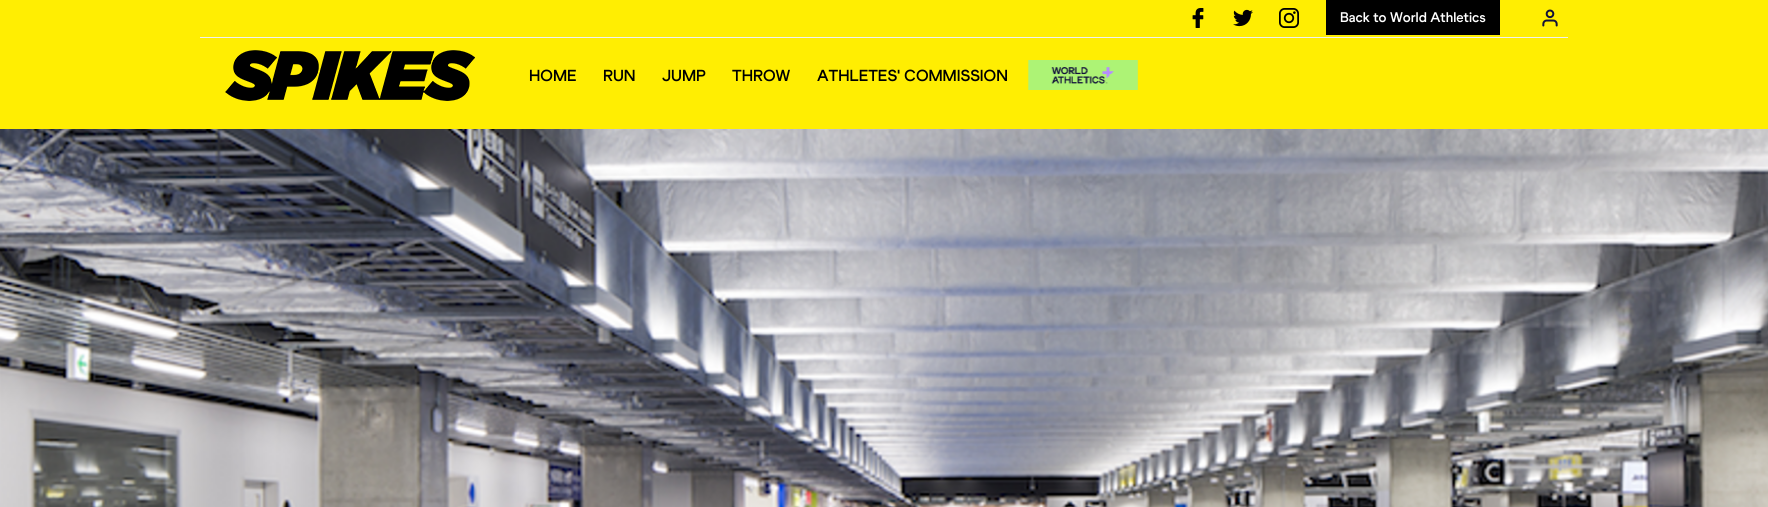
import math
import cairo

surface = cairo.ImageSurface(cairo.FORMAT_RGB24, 1768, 507)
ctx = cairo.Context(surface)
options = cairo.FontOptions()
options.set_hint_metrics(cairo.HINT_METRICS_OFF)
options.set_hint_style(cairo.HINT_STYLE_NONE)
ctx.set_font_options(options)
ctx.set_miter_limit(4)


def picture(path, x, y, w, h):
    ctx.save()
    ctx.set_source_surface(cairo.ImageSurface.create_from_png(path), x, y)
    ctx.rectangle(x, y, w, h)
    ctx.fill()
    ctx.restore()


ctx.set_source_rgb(1, 0.933, 0.008)
ctx.paint()
ctx.set_source_rgb(0.941, 0.941, 0.941)
ctx.rectangle(200, 37, 1368, 1)
ctx.fill()
picture("img1.png", 1192, 8, 12, 20)
picture("img2.png", 1233, 9, 20, 18)
picture("img3.png", 1279, 8, 20, 20)
ctx.set_source_rgb(0, 0, 0)
ctx.rectangle(1326, 0, 174, 35)
ctx.fill()
ctx.select_font_face("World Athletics", cairo.FONT_SLANT_NORMAL, cairo.FONT_WEIGHT_BOLD)
ctx.set_font_size(14)
ctx.set_source_rgb(1, 1, 1)
ctx.move_to(1340, 22)
ctx.show_text("Back to World Athletics")
picture("img4.png", 1542, 9, 16, 18)
picture("img5.png", 225, 50, 250, 51)
ctx.set_font_size(16)
ctx.set_source_rgb(0, 0, 0)
ctx.move_to(529, 81)
ctx.show_text("HOME")
ctx.move_to(603, 81)
ctx.show_text("RUN")
ctx.move_to(662, 81)
ctx.show_text("JUMP")
ctx.move_to(732, 81)
ctx.show_text("THROW")
ctx.move_to(817, 81)
ctx.show_text("ATHLETES' COMMISSION")
picture("img6.png", 1028, 60, 110, 30)
picture("img7.png", 0, 129, 1768, 378)
surface.write_to_png("page.png")
